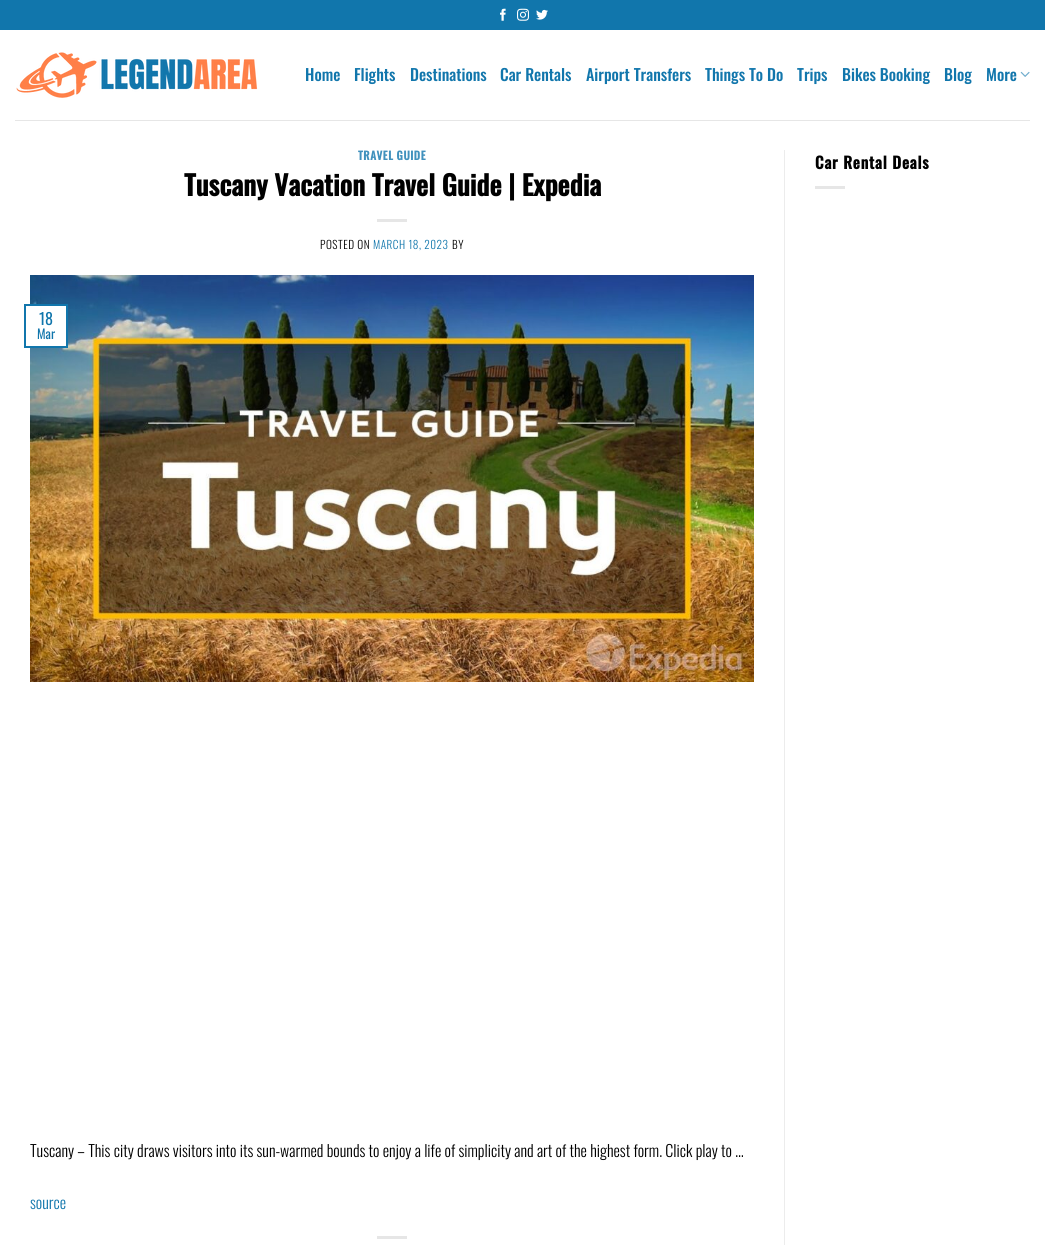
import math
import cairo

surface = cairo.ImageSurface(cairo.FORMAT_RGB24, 1045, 1245)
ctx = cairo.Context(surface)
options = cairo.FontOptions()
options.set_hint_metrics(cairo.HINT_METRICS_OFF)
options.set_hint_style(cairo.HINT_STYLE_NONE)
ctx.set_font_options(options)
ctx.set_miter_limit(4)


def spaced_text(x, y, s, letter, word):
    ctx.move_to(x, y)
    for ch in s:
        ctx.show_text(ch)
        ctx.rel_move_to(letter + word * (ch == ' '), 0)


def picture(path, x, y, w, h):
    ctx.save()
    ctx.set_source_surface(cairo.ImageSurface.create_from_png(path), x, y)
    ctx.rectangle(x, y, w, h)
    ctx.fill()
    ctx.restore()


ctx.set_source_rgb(1, 1, 1)
ctx.paint()
ctx.set_source_rgb(0.067, 0.463, 0.675)
ctx.rectangle(0, 0, 1045, 30)
ctx.fill()
picture("img1.png", 500, 8, 6, 13)
picture("img2.png", 517, 8, 12, 13)
picture("img3.png", 536, 9, 12, 11)
picture("img4.png", 16, 52, 242, 46)
ctx.select_font_face("Oswald Medium")
ctx.set_font_size(16)
ctx.move_to(305, 81)
ctx.show_text("Home")
ctx.move_to(354, 81)
ctx.show_text("Flights")
ctx.move_to(410, 81)
ctx.show_text("Destinations")
ctx.move_to(500, 81)
ctx.show_text("Car Rentals")
ctx.move_to(586, 81)
ctx.show_text("Airport Transfers")
ctx.move_to(705, 81)
ctx.show_text("Things To Do")
ctx.move_to(797, 81)
ctx.show_text("Trips")
ctx.move_to(842, 81)
ctx.show_text("Bikes Booking")
ctx.move_to(944, 81)
ctx.show_text("Blog")
ctx.move_to(986, 81)
ctx.show_text("More")
picture("img5.png", 1020, 71, 10, 6)
ctx.set_source_rgb(0.902, 0.902, 0.902)
ctx.rectangle(15, 120, 1015, 1)
ctx.fill()
ctx.select_font_face("Oswald", cairo.FONT_SLANT_NORMAL, cairo.FONT_WEIGHT_BOLD)
ctx.set_font_size(11.25)
ctx.set_source_rgb(0.255, 0.569, 0.741)
spaced_text(358, 160, "TRAVEL GUIDE", 0.5, 0)
ctx.set_font_size(27.25)
ctx.set_source_rgb(0, 0, 0)
ctx.move_to(184, 196)
ctx.show_text("Tuscany Vacation Travel Guide | Expedia")
ctx.set_source_rgb(0.902, 0.902, 0.902)
ctx.rectangle(377, 219, 30, 3)
ctx.fill()
ctx.select_font_face("Oswald Light")
ctx.set_font_size(11.25)
ctx.set_source_rgb(0, 0, 0)
spaced_text(320, 249, "POSTED ON", 0.5, 0)
ctx.set_source_rgb(0.067, 0.463, 0.675)
spaced_text(373, 249, "MARCH 18, 2023", 0.5, 0)
ctx.set_source_rgb(0, 0, 0)
spaced_text(452, 249, "BY", 0.5, 0)
picture("img6.png", 30, 275, 724, 407)
ctx.set_source_rgb(1, 1, 1)
ctx.rectangle(30, 306, 36, 40)
ctx.fill()
ctx.rectangle(25, 305, 42, 42)
ctx.set_source_rgb(0.067, 0.463, 0.675)
ctx.stroke()
ctx.select_font_face("Oswald")
ctx.set_font_size(16)
ctx.move_to(39, 325)
ctx.show_text("18")
ctx.set_font_size(13)
ctx.move_to(37, 339)
ctx.show_text("Mar")
ctx.select_font_face("Oswald Light")
ctx.set_font_size(16)
ctx.set_source_rgb(0, 0, 0)
ctx.move_to(30, 1157)
ctx.show_text("Tuscany – This city draws visitors into its sun-warmed bounds to enjoy a life of simplicity and art of the highest form. Click play to …")
ctx.set_source_rgb(0.067, 0.463, 0.675)
ctx.move_to(30, 1209)
ctx.show_text("source")
ctx.set_source_rgb(0.902, 0.902, 0.902)
ctx.rectangle(377, 1236, 30, 3)
ctx.fill()
ctx.set_source_rgb(0.925, 0.925, 0.925)
ctx.rectangle(784, 150, 1, 1095)
ctx.fill()
ctx.select_font_face("Oswald", cairo.FONT_SLANT_NORMAL, cairo.FONT_WEIGHT_BOLD)
ctx.set_source_rgb(0, 0, 0)
spaced_text(815, 169, "Car Rental Deals", 0.75, 0)
ctx.set_source_rgb(0.902, 0.902, 0.902)
ctx.rectangle(815, 186, 30, 3)
ctx.fill()
surface.write_to_png("page.png")
